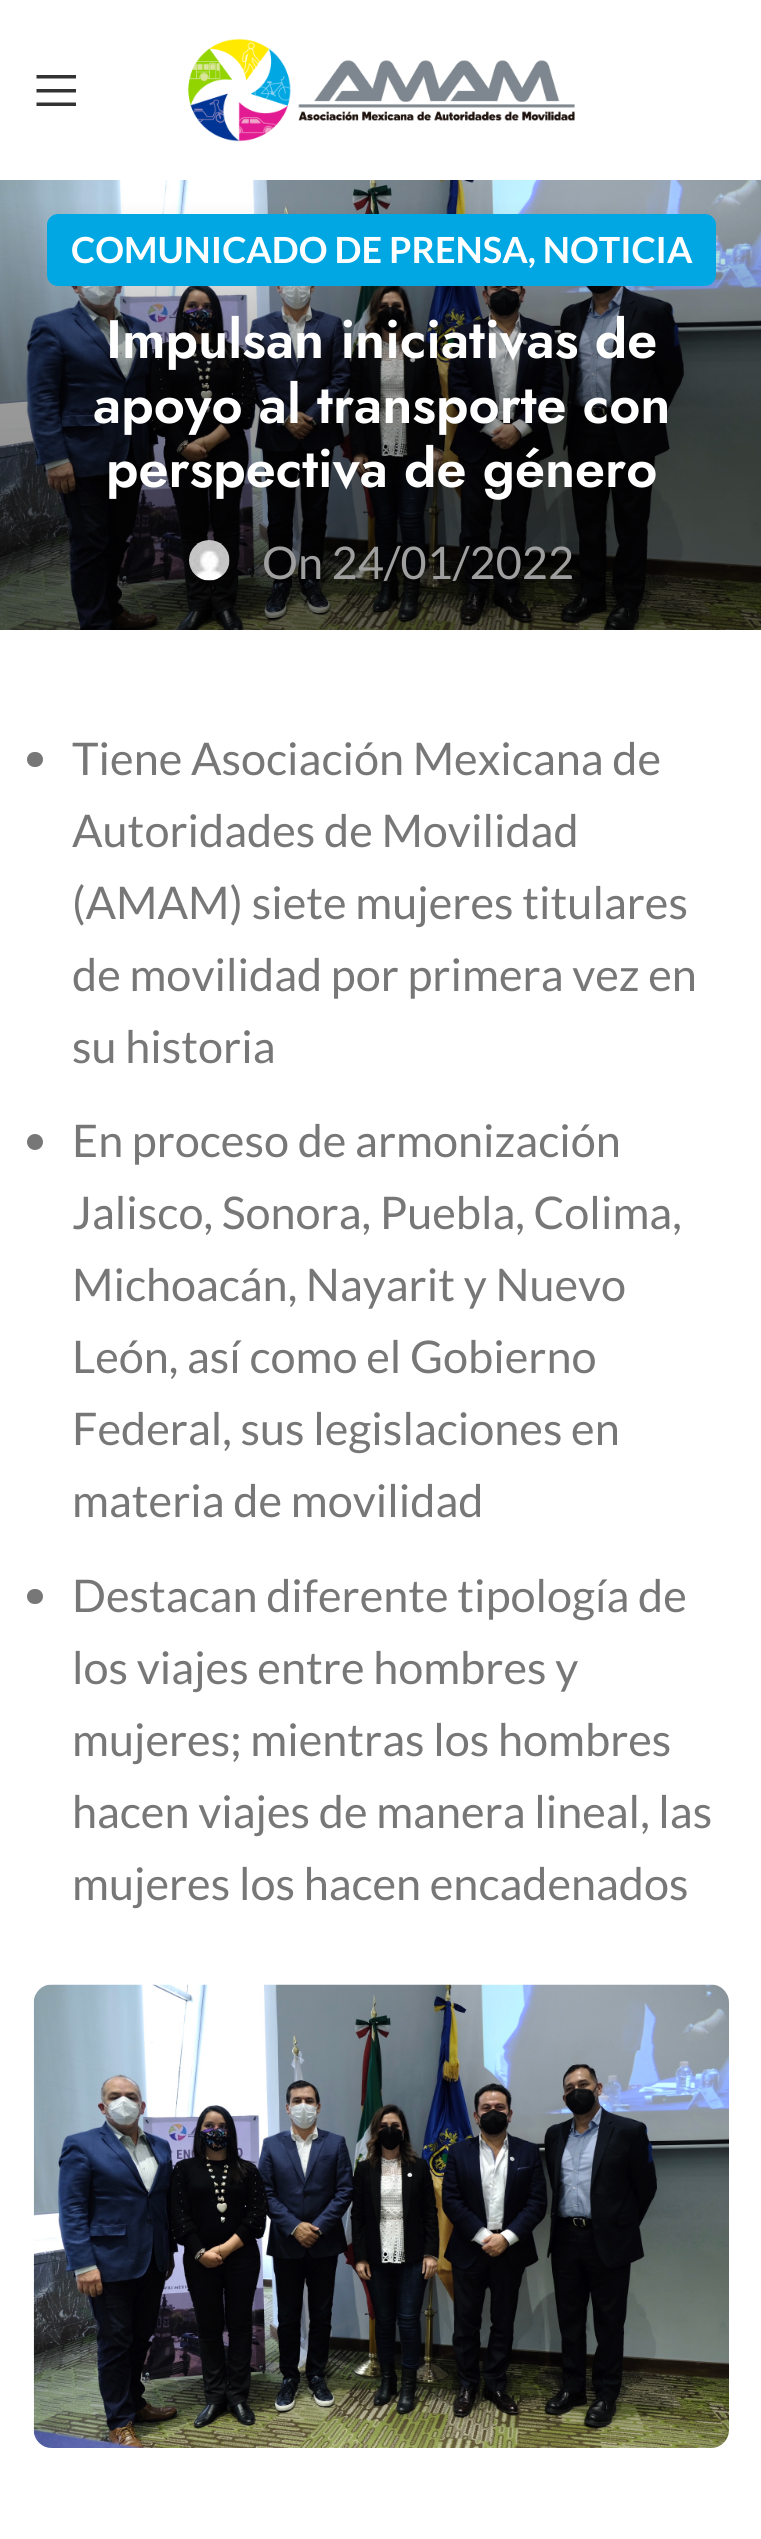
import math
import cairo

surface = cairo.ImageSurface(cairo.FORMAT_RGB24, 761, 2539)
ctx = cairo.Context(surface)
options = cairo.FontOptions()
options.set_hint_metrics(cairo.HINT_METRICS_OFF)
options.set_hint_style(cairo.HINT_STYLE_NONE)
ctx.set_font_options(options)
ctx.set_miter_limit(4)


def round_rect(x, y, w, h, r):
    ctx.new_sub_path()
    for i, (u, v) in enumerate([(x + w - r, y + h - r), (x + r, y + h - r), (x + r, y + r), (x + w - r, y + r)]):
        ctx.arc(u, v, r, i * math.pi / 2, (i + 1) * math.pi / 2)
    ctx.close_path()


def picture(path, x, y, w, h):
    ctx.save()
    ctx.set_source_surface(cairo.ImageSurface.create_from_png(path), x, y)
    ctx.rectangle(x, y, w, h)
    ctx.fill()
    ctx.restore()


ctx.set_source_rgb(1, 1, 1)
ctx.paint()
ctx.set_source_rgb(0.2, 0.2, 0.2)
ctx.new_path()
ctx.move_to(36.5, 78.5)
ctx.line_to(76, 78.5)
ctx.line_to(76, 75)
ctx.line_to(36.5, 75)
ctx.close_path()
ctx.move_to(36.5, 92.5)
ctx.line_to(76, 92.5)
ctx.line_to(76, 89)
ctx.line_to(36.5, 89)
ctx.close_path()
ctx.move_to(36.5, 106)
ctx.line_to(76, 106)
ctx.line_to(76, 102.5)
ctx.line_to(36.5, 102.5)
ctx.close_path()
ctx.fill()
picture("img1.png", 188, 38, 387, 104)
picture("img2.png", 0, 180, 761, 450)
ctx.set_source_rgb(0, 0.655, 0.886)
round_rect(47, 214, 669, 72, 11)
ctx.fill()
ctx.select_font_face("Lato", cairo.FONT_SLANT_NORMAL, cairo.FONT_WEIGHT_BOLD)
ctx.set_font_size(36)
ctx.set_source_rgb(1, 1, 1)
ctx.move_to(71, 263)
ctx.show_text("COMUNICADO DE PRENSA, NOTICIA")
ctx.select_font_face("Jost SemiBold")
ctx.set_font_size(54)
ctx.move_to(106, 358)
ctx.show_text("Impulsan iniciativas de")
ctx.move_to(93, 423)
ctx.show_text("apoyo al transporte con")
ctx.move_to(106, 487)
ctx.show_text("perspectiva de género")
picture("img3.png", 189, 540, 41, 41)
ctx.select_font_face("Lato")
ctx.set_font_size(45)
ctx.set_source_rgb(0.624, 0.624, 0.624)
ctx.move_to(262, 579)
ctx.show_text("On 24/01/2022")
ctx.set_source_rgb(0.467, 0.467, 0.467)
round_rect(27, 752, 16, 15, 7.5)
ctx.fill()
ctx.move_to(72, 775)
ctx.show_text("Tiene Asociación Mexicana de")
ctx.move_to(72, 847)
ctx.show_text("Autoridades de Movilidad")
ctx.move_to(72, 919)
ctx.show_text("(AMAM) siete mujeres titulares")
ctx.move_to(72, 991)
ctx.show_text("de movilidad por primera vez en")
ctx.move_to(72, 1063)
ctx.show_text("su historia")
ctx.new_path()
ctx.arc(35, 1142, 8, 0, 2 * math.pi)
ctx.fill()
ctx.move_to(72, 1157)
ctx.show_text("En proceso de armonización")
ctx.move_to(72, 1229)
ctx.show_text("Jalisco, Sonora, Puebla, Colima,")
ctx.move_to(72, 1301)
ctx.show_text("Michoacán, Nayarit y Nuevo")
ctx.move_to(72, 1373)
ctx.show_text("León, así como el Gobierno")
ctx.move_to(72, 1445)
ctx.show_text("Federal, sus legislaciones en")
ctx.move_to(72, 1517)
ctx.show_text("materia de movilidad")
round_rect(27, 1589, 16, 15, 7.5)
ctx.fill()
ctx.move_to(72, 1612)
ctx.show_text("Destacan diferente tipología de")
ctx.move_to(72, 1684)
ctx.show_text("los viajes entre hombres y")
ctx.move_to(72, 1756)
ctx.show_text("mujeres; mientras los hombres")
ctx.move_to(72, 1828)
ctx.show_text("hacen viajes de manera lineal, las")
ctx.move_to(72, 1900)
ctx.show_text("mujeres los hacen encadenados")
picture("img4.png", 33, 1984, 696, 464)
surface.write_to_png("page.png")
